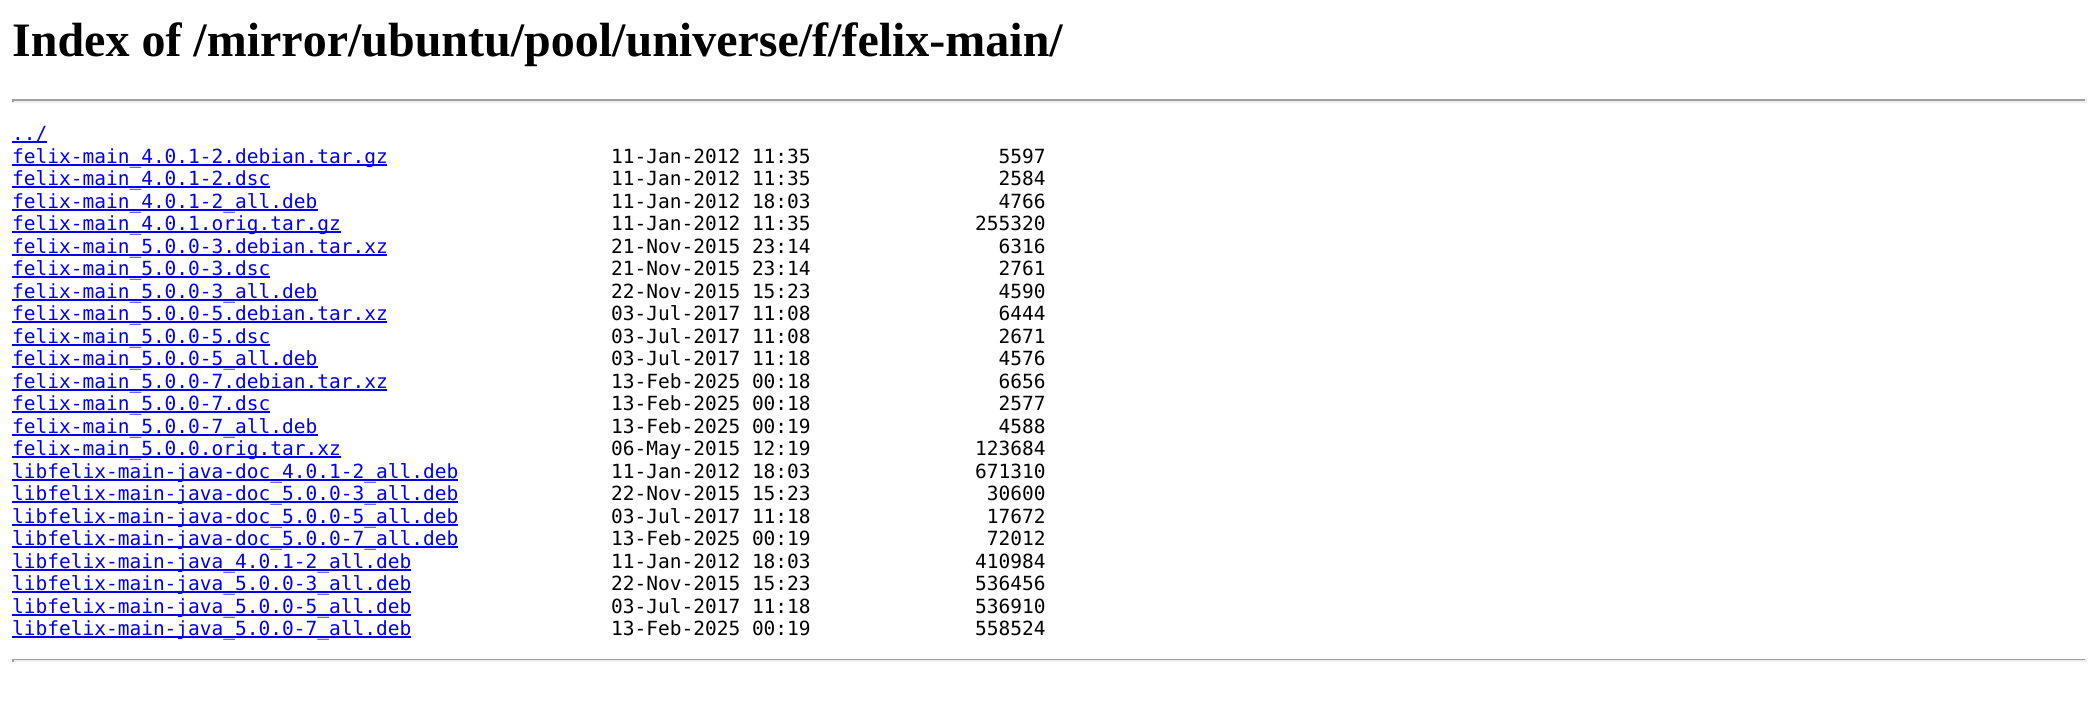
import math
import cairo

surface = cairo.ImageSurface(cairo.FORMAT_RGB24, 2098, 711)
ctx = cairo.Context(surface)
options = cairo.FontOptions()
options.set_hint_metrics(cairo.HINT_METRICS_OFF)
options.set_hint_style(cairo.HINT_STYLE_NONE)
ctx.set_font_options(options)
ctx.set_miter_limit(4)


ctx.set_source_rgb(1, 1, 1)
ctx.paint()
ctx.select_font_face("Liberation Serif", cairo.FONT_SLANT_NORMAL, cairo.FONT_WEIGHT_BOLD)
ctx.set_font_size(48)
ctx.set_source_rgb(0, 0, 0)
ctx.move_to(12, 56)
ctx.show_text("Index of /mirror/ubuntu/pool/universe/f/felix-main/")
ctx.set_source_rgb(0.624, 0.624, 0.624)
ctx.rectangle(12, 99, 2075, 2)
ctx.fill()
ctx.set_source_rgb(0.933, 0.933, 0.933)
ctx.rectangle(2085, 99, 2, 3)
ctx.fill()
ctx.rectangle(12, 101, 2075, 2)
ctx.fill()
ctx.set_source_rgb(0.624, 0.624, 0.624)
ctx.rectangle(12, 99, 2, 3)
ctx.fill()
ctx.set_source_rgb(0, 0, 0.933)
ctx.rectangle(12, 141, 35, 2)
ctx.fill()
ctx.select_font_face("DejaVu Sans Mono")
ctx.set_font_size(19.5)
ctx.move_to(12, 140)
ctx.show_text("../")
ctx.rectangle(12, 164, 375, 2)
ctx.fill()
ctx.move_to(12, 163)
ctx.show_text("felix-main_4.0.1-2.debian.tar.gz")
ctx.set_source_rgb(0, 0, 0)
ctx.move_to(611, 163)
ctx.show_text("11-Jan-2012 11:35                5597")
ctx.set_source_rgb(0, 0, 0.933)
ctx.rectangle(12, 186, 258, 2)
ctx.fill()
ctx.move_to(12, 185)
ctx.show_text("felix-main_4.0.1-2.dsc")
ctx.set_source_rgb(0, 0, 0)
ctx.move_to(611, 185)
ctx.show_text("11-Jan-2012 11:35                2584")
ctx.set_source_rgb(0, 0, 0.933)
ctx.rectangle(12, 209, 306, 2)
ctx.fill()
ctx.move_to(12, 208)
ctx.show_text("felix-main_4.0.1-2_all.deb")
ctx.set_source_rgb(0, 0, 0)
ctx.move_to(611, 208)
ctx.show_text("11-Jan-2012 18:03                4766")
ctx.set_source_rgb(0, 0, 0.933)
ctx.rectangle(12, 231, 329, 2)
ctx.fill()
ctx.move_to(12, 230)
ctx.show_text("felix-main_4.0.1.orig.tar.gz")
ctx.set_source_rgb(0, 0, 0)
ctx.move_to(611, 230)
ctx.show_text("11-Jan-2012 11:35              255320")
ctx.set_source_rgb(0, 0, 0.933)
ctx.rectangle(12, 254, 375, 2)
ctx.fill()
ctx.move_to(12, 253)
ctx.show_text("felix-main_5.0.0-3.debian.tar.xz")
ctx.set_source_rgb(0, 0, 0)
ctx.move_to(611, 253)
ctx.show_text("21-Nov-2015 23:14                6316")
ctx.set_source_rgb(0, 0, 0.933)
ctx.rectangle(12, 276, 258, 2)
ctx.fill()
ctx.move_to(12, 275)
ctx.show_text("felix-main_5.0.0-3.dsc")
ctx.set_source_rgb(0, 0, 0)
ctx.move_to(611, 275)
ctx.show_text("21-Nov-2015 23:14                2761")
ctx.set_source_rgb(0, 0, 0.933)
ctx.rectangle(12, 299, 306, 2)
ctx.fill()
ctx.move_to(12, 298)
ctx.show_text("felix-main_5.0.0-3_all.deb")
ctx.set_source_rgb(0, 0, 0)
ctx.move_to(611, 298)
ctx.show_text("22-Nov-2015 15:23                4590")
ctx.set_source_rgb(0, 0, 0.933)
ctx.rectangle(12, 321, 375, 2)
ctx.fill()
ctx.move_to(12, 320)
ctx.show_text("felix-main_5.0.0-5.debian.tar.xz")
ctx.set_source_rgb(0, 0, 0)
ctx.move_to(611, 320)
ctx.show_text("03-Jul-2017 11:08                6444")
ctx.set_source_rgb(0, 0, 0.933)
ctx.rectangle(12, 344, 258, 2)
ctx.fill()
ctx.move_to(12, 343)
ctx.show_text("felix-main_5.0.0-5.dsc")
ctx.set_source_rgb(0, 0, 0)
ctx.move_to(611, 343)
ctx.show_text("03-Jul-2017 11:08                2671")
ctx.set_source_rgb(0, 0, 0.933)
ctx.rectangle(12, 366, 306, 2)
ctx.fill()
ctx.move_to(12, 365)
ctx.show_text("felix-main_5.0.0-5_all.deb")
ctx.set_source_rgb(0, 0, 0)
ctx.move_to(611, 365)
ctx.show_text("03-Jul-2017 11:18                4576")
ctx.set_source_rgb(0, 0, 0.933)
ctx.rectangle(12, 389, 375, 2)
ctx.fill()
ctx.move_to(12, 388)
ctx.show_text("felix-main_5.0.0-7.debian.tar.xz")
ctx.set_source_rgb(0, 0, 0)
ctx.move_to(611, 388)
ctx.show_text("13-Feb-2025 00:18                6656")
ctx.set_source_rgb(0, 0, 0.933)
ctx.rectangle(12, 411, 258, 2)
ctx.fill()
ctx.move_to(12, 410)
ctx.show_text("felix-main_5.0.0-7.dsc")
ctx.set_source_rgb(0, 0, 0)
ctx.move_to(611, 410)
ctx.show_text("13-Feb-2025 00:18                2577")
ctx.set_source_rgb(0, 0, 0.933)
ctx.rectangle(12, 434, 306, 2)
ctx.fill()
ctx.move_to(12, 433)
ctx.show_text("felix-main_5.0.0-7_all.deb")
ctx.set_source_rgb(0, 0, 0)
ctx.move_to(611, 433)
ctx.show_text("13-Feb-2025 00:19                4588")
ctx.set_source_rgb(0, 0, 0.933)
ctx.rectangle(12, 456, 329, 2)
ctx.fill()
ctx.move_to(12, 455)
ctx.show_text("felix-main_5.0.0.orig.tar.xz")
ctx.set_source_rgb(0, 0, 0)
ctx.move_to(611, 455)
ctx.show_text("06-May-2015 12:19              123684")
ctx.set_source_rgb(0, 0, 0.933)
ctx.rectangle(12, 479, 446, 2)
ctx.fill()
ctx.move_to(12, 478)
ctx.show_text("libfelix-main-java-doc_4.0.1-2_all.deb")
ctx.set_source_rgb(0, 0, 0)
ctx.move_to(611, 478)
ctx.show_text("11-Jan-2012 18:03              671310")
ctx.set_source_rgb(0, 0, 0.933)
ctx.rectangle(12, 501, 446, 2)
ctx.fill()
ctx.move_to(12, 500)
ctx.show_text("libfelix-main-java-doc_5.0.0-3_all.deb")
ctx.set_source_rgb(0, 0, 0)
ctx.move_to(611, 500)
ctx.show_text("22-Nov-2015 15:23               30600")
ctx.set_source_rgb(0, 0, 0.933)
ctx.rectangle(12, 524, 446, 2)
ctx.fill()
ctx.move_to(12, 523)
ctx.show_text("libfelix-main-java-doc_5.0.0-5_all.deb")
ctx.set_source_rgb(0, 0, 0)
ctx.move_to(611, 523)
ctx.show_text("03-Jul-2017 11:18               17672")
ctx.set_source_rgb(0, 0, 0.933)
ctx.rectangle(12, 546, 446, 2)
ctx.fill()
ctx.move_to(12, 545)
ctx.show_text("libfelix-main-java-doc_5.0.0-7_all.deb")
ctx.set_source_rgb(0, 0, 0)
ctx.move_to(611, 545)
ctx.show_text("13-Feb-2025 00:19               72012")
ctx.set_source_rgb(0, 0, 0.933)
ctx.rectangle(12, 569, 399, 2)
ctx.fill()
ctx.move_to(12, 568)
ctx.show_text("libfelix-main-java_4.0.1-2_all.deb")
ctx.set_source_rgb(0, 0, 0)
ctx.move_to(611, 568)
ctx.show_text("11-Jan-2012 18:03              410984")
ctx.set_source_rgb(0, 0, 0.933)
ctx.rectangle(12, 591, 399, 2)
ctx.fill()
ctx.move_to(12, 590)
ctx.show_text("libfelix-main-java_5.0.0-3_all.deb")
ctx.set_source_rgb(0, 0, 0)
ctx.move_to(611, 590)
ctx.show_text("22-Nov-2015 15:23              536456")
ctx.set_source_rgb(0, 0, 0.933)
ctx.rectangle(12, 614, 399, 2)
ctx.fill()
ctx.move_to(12, 613)
ctx.show_text("libfelix-main-java_5.0.0-5_all.deb")
ctx.set_source_rgb(0, 0, 0)
ctx.move_to(611, 613)
ctx.show_text("03-Jul-2017 11:18              536910")
ctx.set_source_rgb(0, 0, 0.933)
ctx.rectangle(12, 636, 399, 2)
ctx.fill()
ctx.move_to(12, 635)
ctx.show_text("libfelix-main-java_5.0.0-7_all.deb")
ctx.set_source_rgb(0, 0, 0)
ctx.move_to(611, 635)
ctx.show_text("13-Feb-2025 00:19              558524")
ctx.set_source_rgb(0.624, 0.624, 0.624)
ctx.rectangle(12, 659, 2075, 1)
ctx.fill()
ctx.set_source_rgb(0.933, 0.933, 0.933)
ctx.rectangle(2085, 659, 2, 3)
ctx.fill()
ctx.rectangle(12, 660, 2075, 2)
ctx.fill()
ctx.set_source_rgb(0.624, 0.624, 0.624)
ctx.rectangle(12, 659, 2, 3)
ctx.fill()
surface.write_to_png("page.png")
